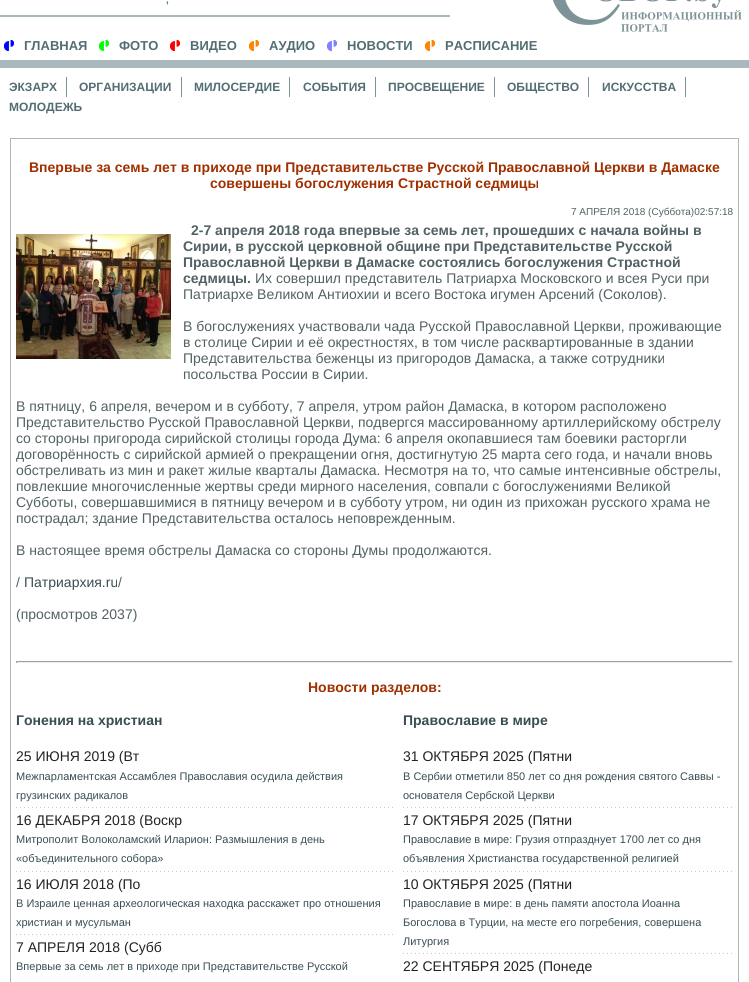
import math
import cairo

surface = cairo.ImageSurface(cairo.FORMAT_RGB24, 749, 982)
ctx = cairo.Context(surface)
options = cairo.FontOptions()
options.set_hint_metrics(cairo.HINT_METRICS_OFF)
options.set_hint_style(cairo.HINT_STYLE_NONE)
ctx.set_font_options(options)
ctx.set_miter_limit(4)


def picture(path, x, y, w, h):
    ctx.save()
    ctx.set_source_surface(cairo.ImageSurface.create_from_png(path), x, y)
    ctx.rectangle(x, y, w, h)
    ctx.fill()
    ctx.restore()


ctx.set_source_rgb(1, 1, 1)
ctx.paint()
ctx.set_source_rgb(0.659, 0.722, 0.737)
ctx.rectangle(0, 15, 450, 2)
ctx.fill()
ctx.select_font_face("Liberation Sans", cairo.FONT_SLANT_NORMAL, cairo.FONT_WEIGHT_BOLD)
ctx.set_font_size(10)
ctx.set_source_rgb(0.322, 0.431, 0.451)
ctx.move_to(166, 3)
ctx.show_text(",")
picture("img1.png", 552, 0, 190, 32)
ctx.set_source_rgb(0.659, 0.722, 0.737)
ctx.rectangle(0, 60, 749, 8)
ctx.fill()
picture("img2.png", 4, 40, 10, 11)
ctx.set_font_size(13)
ctx.set_source_rgb(0.322, 0.431, 0.451)
ctx.move_to(24, 50)
ctx.show_text("ГЛАВНАЯ")
picture("img3.png", 99, 40, 10, 11)
ctx.move_to(119, 50)
ctx.show_text("ФОТО")
picture("img4.png", 170, 40, 10, 11)
ctx.move_to(190, 50)
ctx.show_text("ВИДЕО")
picture("img5.png", 249, 40, 10, 11)
ctx.move_to(269, 50)
ctx.show_text("АУДИО")
picture("img6.png", 327, 40, 10, 11)
ctx.move_to(347, 50)
ctx.show_text("НОВОСТИ")
picture("img5.png", 425, 40, 10, 11)
ctx.move_to(445, 50)
ctx.show_text("РАСПИСАНИЕ")
ctx.set_source_rgb(0.494, 0.576, 0.592)
ctx.rectangle(66, 77, 1, 20)
ctx.fill()
ctx.set_font_size(12)
ctx.set_source_rgb(0.322, 0.431, 0.451)
ctx.move_to(9, 91)
ctx.show_text("ЭКЗАРХ")
ctx.set_source_rgb(0.494, 0.576, 0.592)
ctx.rectangle(181, 77, 1, 20)
ctx.fill()
ctx.set_source_rgb(0.322, 0.431, 0.451)
ctx.move_to(79, 91)
ctx.show_text("ОРГАНИЗАЦИИ")
ctx.set_source_rgb(0.494, 0.576, 0.592)
ctx.rectangle(289, 77, 1, 20)
ctx.fill()
ctx.set_source_rgb(0.322, 0.431, 0.451)
ctx.move_to(194, 91)
ctx.show_text("МИЛОСЕРДИЕ")
ctx.set_source_rgb(0.494, 0.576, 0.592)
ctx.rectangle(375, 77, 1, 20)
ctx.fill()
ctx.set_source_rgb(0.322, 0.431, 0.451)
ctx.move_to(303, 91)
ctx.show_text("СОБЫТИЯ")
ctx.set_source_rgb(0.494, 0.576, 0.592)
ctx.rectangle(494, 77, 1, 20)
ctx.fill()
ctx.set_source_rgb(0.322, 0.431, 0.451)
ctx.move_to(388, 91)
ctx.show_text("ПРОСВЕЩЕНИЕ")
ctx.set_source_rgb(0.494, 0.576, 0.592)
ctx.rectangle(588, 77, 1, 20)
ctx.fill()
ctx.set_source_rgb(0.322, 0.431, 0.451)
ctx.move_to(507, 91)
ctx.show_text("ОБЩЕСТВО")
ctx.set_source_rgb(0.494, 0.576, 0.592)
ctx.rectangle(685, 77, 1, 20)
ctx.fill()
ctx.set_source_rgb(0.322, 0.431, 0.451)
ctx.move_to(602, 91)
ctx.show_text("ИСКУССТВА")
ctx.move_to(9, 111)
ctx.show_text("МОЛОДЕЖЬ")
ctx.rectangle(10.5, 138.5, 728, 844)
ctx.set_source_rgb(0.659, 0.722, 0.737)
ctx.set_line_width(1)
ctx.stroke()
ctx.set_font_size(14)
ctx.set_source_rgb(0.627, 0.188, 0)
ctx.move_to(29, 172)
ctx.show_text("Впервые за семь лет в приходе при Представительстве Русской Православной Церкви в Дамаске")
ctx.move_to(210, 188)
ctx.show_text("совершены богослужения Страстной седмицы")
ctx.select_font_face("Liberation Sans")
ctx.set_font_size(10)
ctx.set_source_rgb(0.318, 0.38, 0.392)
ctx.move_to(571, 215)
ctx.show_text("7 АПРЕЛЯ 2018 (Суббота)02:57:18")
ctx.select_font_face("Liberation Sans", cairo.FONT_SLANT_NORMAL, cairo.FONT_WEIGHT_BOLD)
ctx.set_font_size(14)
ctx.move_to(191, 235)
ctx.show_text("2-7 апреля 2018 года впервые за семь лет, прошедших с начала войны в")
picture("img7.png", 16, 234, 155, 125)
ctx.move_to(183, 251)
ctx.show_text("Сирии, в русской церковной общине при Представительстве Русской")
ctx.move_to(183, 267)
ctx.show_text("Православной Церкви в Дамаске состоялись богослужения Страстной")
ctx.move_to(183, 283)
ctx.show_text("седмицы.")
ctx.select_font_face("Liberation Sans")
ctx.move_to(255, 283)
ctx.show_text("Их совершил представитель Патриарха Московского и всея Руси при")
ctx.move_to(183, 299)
ctx.show_text("Патриархе Великом Антиохии и всего Востока игумен Арсений (Соколов).")
ctx.move_to(183, 331)
ctx.show_text("В богослужениях участвовали чада Русской Православной Церкви, проживающие")
ctx.move_to(183, 347)
ctx.show_text("в столице Сирии и её окрестностях, в том числе расквартированные в здании")
ctx.move_to(183, 363)
ctx.show_text("Представительства беженцы из пригородов Дамаска, а также сотрудники")
ctx.move_to(183, 379)
ctx.show_text("посольства России в Сирии.")
ctx.move_to(16, 411)
ctx.show_text("В пятницу, 6 апреля, вечером и в субботу, 7 апреля, утром район Дамаска, в котором расположено")
ctx.move_to(16, 427)
ctx.show_text("Представительство Русской Православной Церкви, подвергся массированному артиллерийскому обстрелу")
ctx.move_to(16, 443)
ctx.show_text("со стороны пригорода сирийской столицы города Дума: 6 апреля окопавшиеся там боевики расторгли")
ctx.move_to(16, 459)
ctx.show_text("договорённость с сирийской армией о прекращении огня, достигнутую 25 марта сего года, и начали вновь")
ctx.move_to(16, 475)
ctx.show_text("обстреливать из мин и ракет жилые кварталы Дамаска. Несмотря на то, что самые интенсивные обстрелы,")
ctx.move_to(16, 491)
ctx.show_text("повлекшие многочисленные жертвы среди мирного населения, совпали с богослужениями Великой")
ctx.move_to(16, 507)
ctx.show_text("Субботы, совершавшимися в пятницу вечером и в субботу утром, ни один из прихожан русского храма не")
ctx.move_to(16, 523)
ctx.show_text("пострадал; здание Представительства осталось неповрежденным.")
ctx.move_to(16, 555)
ctx.show_text("В настоящее время обстрелы Дамаска со стороны Думы продолжаются.")
ctx.move_to(16, 587)
ctx.show_text("/")
ctx.set_source_rgb(0.216, 0.306, 0.322)
ctx.move_to(24, 587)
ctx.show_text("Патриархия.ru")
ctx.set_source_rgb(0.318, 0.38, 0.392)
ctx.move_to(118, 587)
ctx.show_text("/")
ctx.move_to(16, 619)
ctx.show_text("(просмотров 2037)")
ctx.set_source_rgb(0.624, 0.624, 0.624)
ctx.rectangle(16, 661, 717, 1)
ctx.fill()
ctx.set_source_rgb(0.933, 0.933, 0.933)
ctx.rectangle(732, 661, 1, 2)
ctx.fill()
ctx.rectangle(16, 662, 717, 1)
ctx.fill()
ctx.set_source_rgb(0.624, 0.624, 0.624)
ctx.rectangle(16, 661, 1, 2)
ctx.fill()
ctx.select_font_face("Liberation Sans", cairo.FONT_SLANT_NORMAL, cairo.FONT_WEIGHT_BOLD)
ctx.set_source_rgb(0.627, 0.188, 0)
ctx.move_to(308, 692)
ctx.show_text("Новости разделов:")
ctx.set_source_rgb(0.216, 0.306, 0.322)
ctx.move_to(16, 725)
ctx.show_text("Гонения на христиан")
ctx.select_font_face("Liberation Sans")
ctx.set_source_rgb(0.133, 0.133, 0.133)
ctx.move_to(16, 761)
ctx.show_text("25 ИЮНЯ 2019 (Вт")
ctx.set_font_size(11)
ctx.set_source_rgb(0.216, 0.306, 0.322)
ctx.move_to(16, 780)
ctx.show_text("Межпарламентская Ассамблея Православия осудила действия")
ctx.move_to(16, 799)
ctx.show_text("грузинских радикалов")
picture("img8.png", 16, 807, 377, 1)
ctx.set_font_size(14)
ctx.set_source_rgb(0.133, 0.133, 0.133)
ctx.move_to(16, 825)
ctx.show_text("16 ДЕКАБРЯ 2018 (Воскр")
ctx.set_font_size(11)
ctx.set_source_rgb(0.216, 0.306, 0.322)
ctx.move_to(16, 843)
ctx.show_text("Митрополит Волоколамский Иларион: Размышления в день")
ctx.move_to(16, 862)
ctx.show_text("«объединительного собора»")
picture("img8.png", 16, 871, 377, 1)
ctx.set_font_size(14)
ctx.set_source_rgb(0.133, 0.133, 0.133)
ctx.move_to(16, 889)
ctx.show_text("16 ИЮЛЯ 2018 (По")
ctx.set_font_size(11)
ctx.set_source_rgb(0.216, 0.306, 0.322)
ctx.move_to(16, 907)
ctx.show_text("В Израиле ценная археологическая находка расскажет про отношения")
ctx.move_to(16, 926)
ctx.show_text("христиан и мусульман")
picture("img8.png", 16, 934, 377, 1)
ctx.set_font_size(14)
ctx.set_source_rgb(0.133, 0.133, 0.133)
ctx.move_to(16, 952)
ctx.show_text("7 АПРЕЛЯ 2018 (Субб")
ctx.set_font_size(11)
ctx.set_source_rgb(0.216, 0.306, 0.322)
ctx.move_to(16, 970)
ctx.show_text("Впервые за семь лет в приходе при Представительстве Русской")
ctx.select_font_face("Liberation Sans", cairo.FONT_SLANT_NORMAL, cairo.FONT_WEIGHT_BOLD)
ctx.set_font_size(14)
ctx.move_to(403, 725)
ctx.show_text("Православие в мире")
ctx.select_font_face("Liberation Sans")
ctx.set_source_rgb(0.133, 0.133, 0.133)
ctx.move_to(403, 761)
ctx.show_text("31 ОКТЯБРЯ 2025 (Пятни")
ctx.set_font_size(11)
ctx.set_source_rgb(0.216, 0.306, 0.322)
ctx.move_to(403, 780)
ctx.show_text("В Сербии отметили 850 лет со дня рождения святого Саввы -")
ctx.move_to(403, 799)
ctx.show_text("основателя Сербской Церкви")
picture("img9.png", 403, 807, 329, 1)
ctx.set_font_size(14)
ctx.set_source_rgb(0.133, 0.133, 0.133)
ctx.move_to(403, 825)
ctx.show_text("17 ОКТЯБРЯ 2025 (Пятни")
ctx.set_font_size(11)
ctx.set_source_rgb(0.216, 0.306, 0.322)
ctx.move_to(403, 843)
ctx.show_text("Православие в мире: Грузия отпразднует 1700 лет со дня")
ctx.move_to(403, 862)
ctx.show_text("объявления Христианства государственной религией")
picture("img9.png", 403, 871, 329, 1)
ctx.set_font_size(14)
ctx.set_source_rgb(0.133, 0.133, 0.133)
ctx.move_to(403, 889)
ctx.show_text("10 ОКТЯБРЯ 2025 (Пятни")
ctx.set_font_size(11)
ctx.set_source_rgb(0.216, 0.306, 0.322)
ctx.move_to(403, 907)
ctx.show_text("Православие в мире: в день памяти апостола Иоанна")
ctx.move_to(403, 926)
ctx.show_text("Богослова в Турции, на месте его погребения, совершена")
ctx.move_to(403, 945)
ctx.show_text("Литургия")
picture("img9.png", 403, 953, 329, 1)
ctx.set_font_size(14)
ctx.set_source_rgb(0.133, 0.133, 0.133)
ctx.move_to(403, 971)
ctx.show_text("22 СЕНТЯБРЯ 2025 (Понеде")
surface.write_to_png("page.png")
